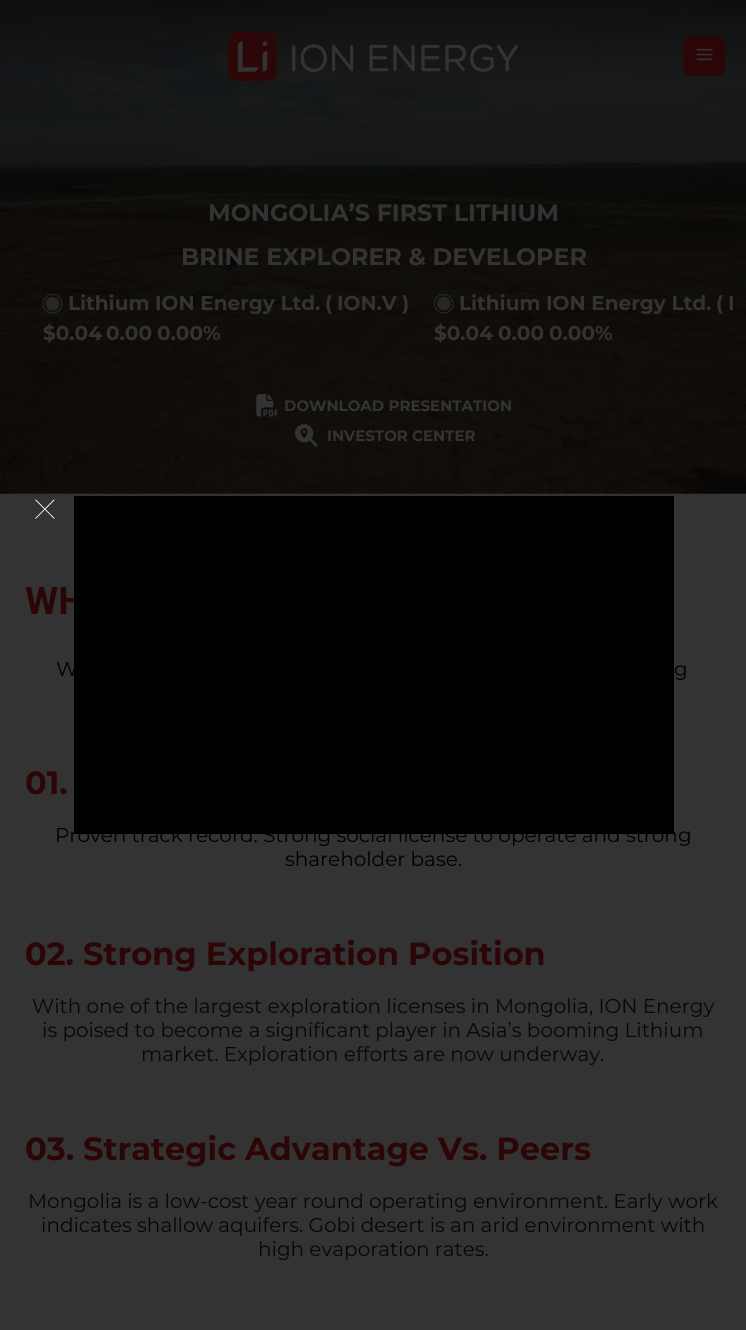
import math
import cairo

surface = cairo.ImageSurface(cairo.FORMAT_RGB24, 746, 1330)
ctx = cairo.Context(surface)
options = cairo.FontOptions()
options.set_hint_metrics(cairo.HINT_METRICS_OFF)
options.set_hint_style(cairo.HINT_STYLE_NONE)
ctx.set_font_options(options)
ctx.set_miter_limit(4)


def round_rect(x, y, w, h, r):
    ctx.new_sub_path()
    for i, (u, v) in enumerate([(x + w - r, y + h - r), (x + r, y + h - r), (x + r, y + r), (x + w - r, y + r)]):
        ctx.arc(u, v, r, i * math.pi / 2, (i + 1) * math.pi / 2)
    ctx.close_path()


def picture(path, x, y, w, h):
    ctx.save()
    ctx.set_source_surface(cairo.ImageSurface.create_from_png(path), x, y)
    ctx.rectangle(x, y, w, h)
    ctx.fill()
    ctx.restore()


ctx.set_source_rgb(0.2, 0.2, 0.2)
ctx.paint()
picture("img3.png", 0, 0, 746, 494)
picture("img1.png", 228, 32, 290, 50)
ctx.set_source_rgb(0.173, 0.027, 0.031)
round_rect(684, 36, 41, 40, 6)
ctx.fill()
picture("img2.png", 696, 48, 17, 13)
ctx.select_font_face("Montserrat", cairo.FONT_SLANT_NORMAL, cairo.FONT_WEIGHT_BOLD)
ctx.set_font_size(23.75)
ctx.set_source_rgb(0.2, 0.2, 0.2)
ctx.move_to(208, 221)
ctx.show_text("MONGOLIA’S FIRST LITHIUM")
ctx.move_to(181, 265)
ctx.show_text("BRINE EXPLORER & DEVELOPER")
picture("img4.png", 42, 293, 21, 21)
ctx.set_font_size(20)
ctx.move_to(68, 310)
ctx.show_text("Lithium ION Energy Ltd.")
ctx.move_to(325, 310)
ctx.show_text("(")
ctx.move_to(337, 310)
ctx.show_text("ION.V")
ctx.move_to(402, 310)
ctx.show_text(")")
ctx.move_to(43, 340)
ctx.show_text("$0.04")
ctx.move_to(106, 340)
ctx.show_text("0.00")
ctx.move_to(157, 340)
ctx.show_text("0.00%")
picture("img5.png", 433, 293, 21, 21)
ctx.move_to(459, 310)
ctx.show_text("Lithium ION Energy Ltd.")
ctx.move_to(716, 310)
ctx.show_text("(")
ctx.move_to(728, 310)
ctx.show_text("I")
ctx.move_to(434, 340)
ctx.show_text("$0.04")
ctx.move_to(498, 340)
ctx.show_text("0.00")
ctx.move_to(549, 340)
ctx.show_text("0.00%")
picture("img6.png", 256, 394, 22, 23)
ctx.set_font_size(15)
ctx.move_to(284, 411)
ctx.show_text("DOWNLOAD PRESENTATION")
picture("img7.png", 295, 424, 23, 23)
ctx.move_to(327, 441)
ctx.show_text("INVESTOR CENTER")
ctx.select_font_face("Roboto", cairo.FONT_SLANT_NORMAL, cairo.FONT_WEIGHT_BOLD)
ctx.set_font_size(38)
ctx.set_source_rgb(0.173, 0.027, 0.031)
ctx.move_to(25, 614)
ctx.show_text("WH")
ctx.select_font_face("Montserrat")
ctx.set_font_size(20)
ctx.set_source_rgb(0, 0, 0)
ctx.move_to(56, 676)
ctx.show_text("W")
ctx.move_to(674, 676)
ctx.show_text("g")
ctx.select_font_face("Montserrat", cairo.FONT_SLANT_NORMAL, cairo.FONT_WEIGHT_BOLD)
ctx.set_font_size(32)
ctx.set_source_rgb(0.173, 0.027, 0.031)
ctx.move_to(25, 794)
ctx.show_text("01.")
ctx.select_font_face("Montserrat")
ctx.set_font_size(20)
ctx.set_source_rgb(0, 0, 0)
ctx.move_to(55, 842)
ctx.show_text("Proven track record. Strong social license to operate and strong")
ctx.move_to(285, 866)
ctx.show_text("shareholder base.")
ctx.select_font_face("Montserrat", cairo.FONT_SLANT_NORMAL, cairo.FONT_WEIGHT_BOLD)
ctx.set_font_size(32)
ctx.set_source_rgb(0.173, 0.027, 0.031)
ctx.move_to(25, 965)
ctx.show_text("02. Strong Exploration Position")
ctx.select_font_face("Montserrat")
ctx.set_font_size(20)
ctx.set_source_rgb(0.031, 0.031, 0.031)
ctx.move_to(32, 1013)
ctx.show_text("With one of the largest exploration licenses in Mongolia, ION Energy")
ctx.move_to(42, 1037)
ctx.show_text("is poised to become a significant player in Asia’s booming Lithium")
ctx.move_to(141, 1061)
ctx.show_text("market. Exploration efforts are now underway.")
ctx.select_font_face("Montserrat", cairo.FONT_SLANT_NORMAL, cairo.FONT_WEIGHT_BOLD)
ctx.set_font_size(32)
ctx.set_source_rgb(0.173, 0.027, 0.031)
ctx.move_to(25, 1160)
ctx.show_text("03. Strategic Advantage Vs. Peers")
ctx.select_font_face("Montserrat")
ctx.set_font_size(20)
ctx.set_source_rgb(0.031, 0.031, 0.031)
ctx.move_to(28, 1208)
ctx.show_text("Mongolia is a low-cost year round operating environment. Early work")
ctx.move_to(41, 1232)
ctx.show_text("indicates shallow aquifers. Gobi desert is an arid environment with")
ctx.move_to(258, 1256)
ctx.show_text("high evaporation rates.")
ctx.set_source_rgb(0, 0, 0)
ctx.rectangle(74, 496, 600, 338)
ctx.fill()
picture("img8.png", 35, 499, 20, 20)
surface.write_to_png("page.png")
